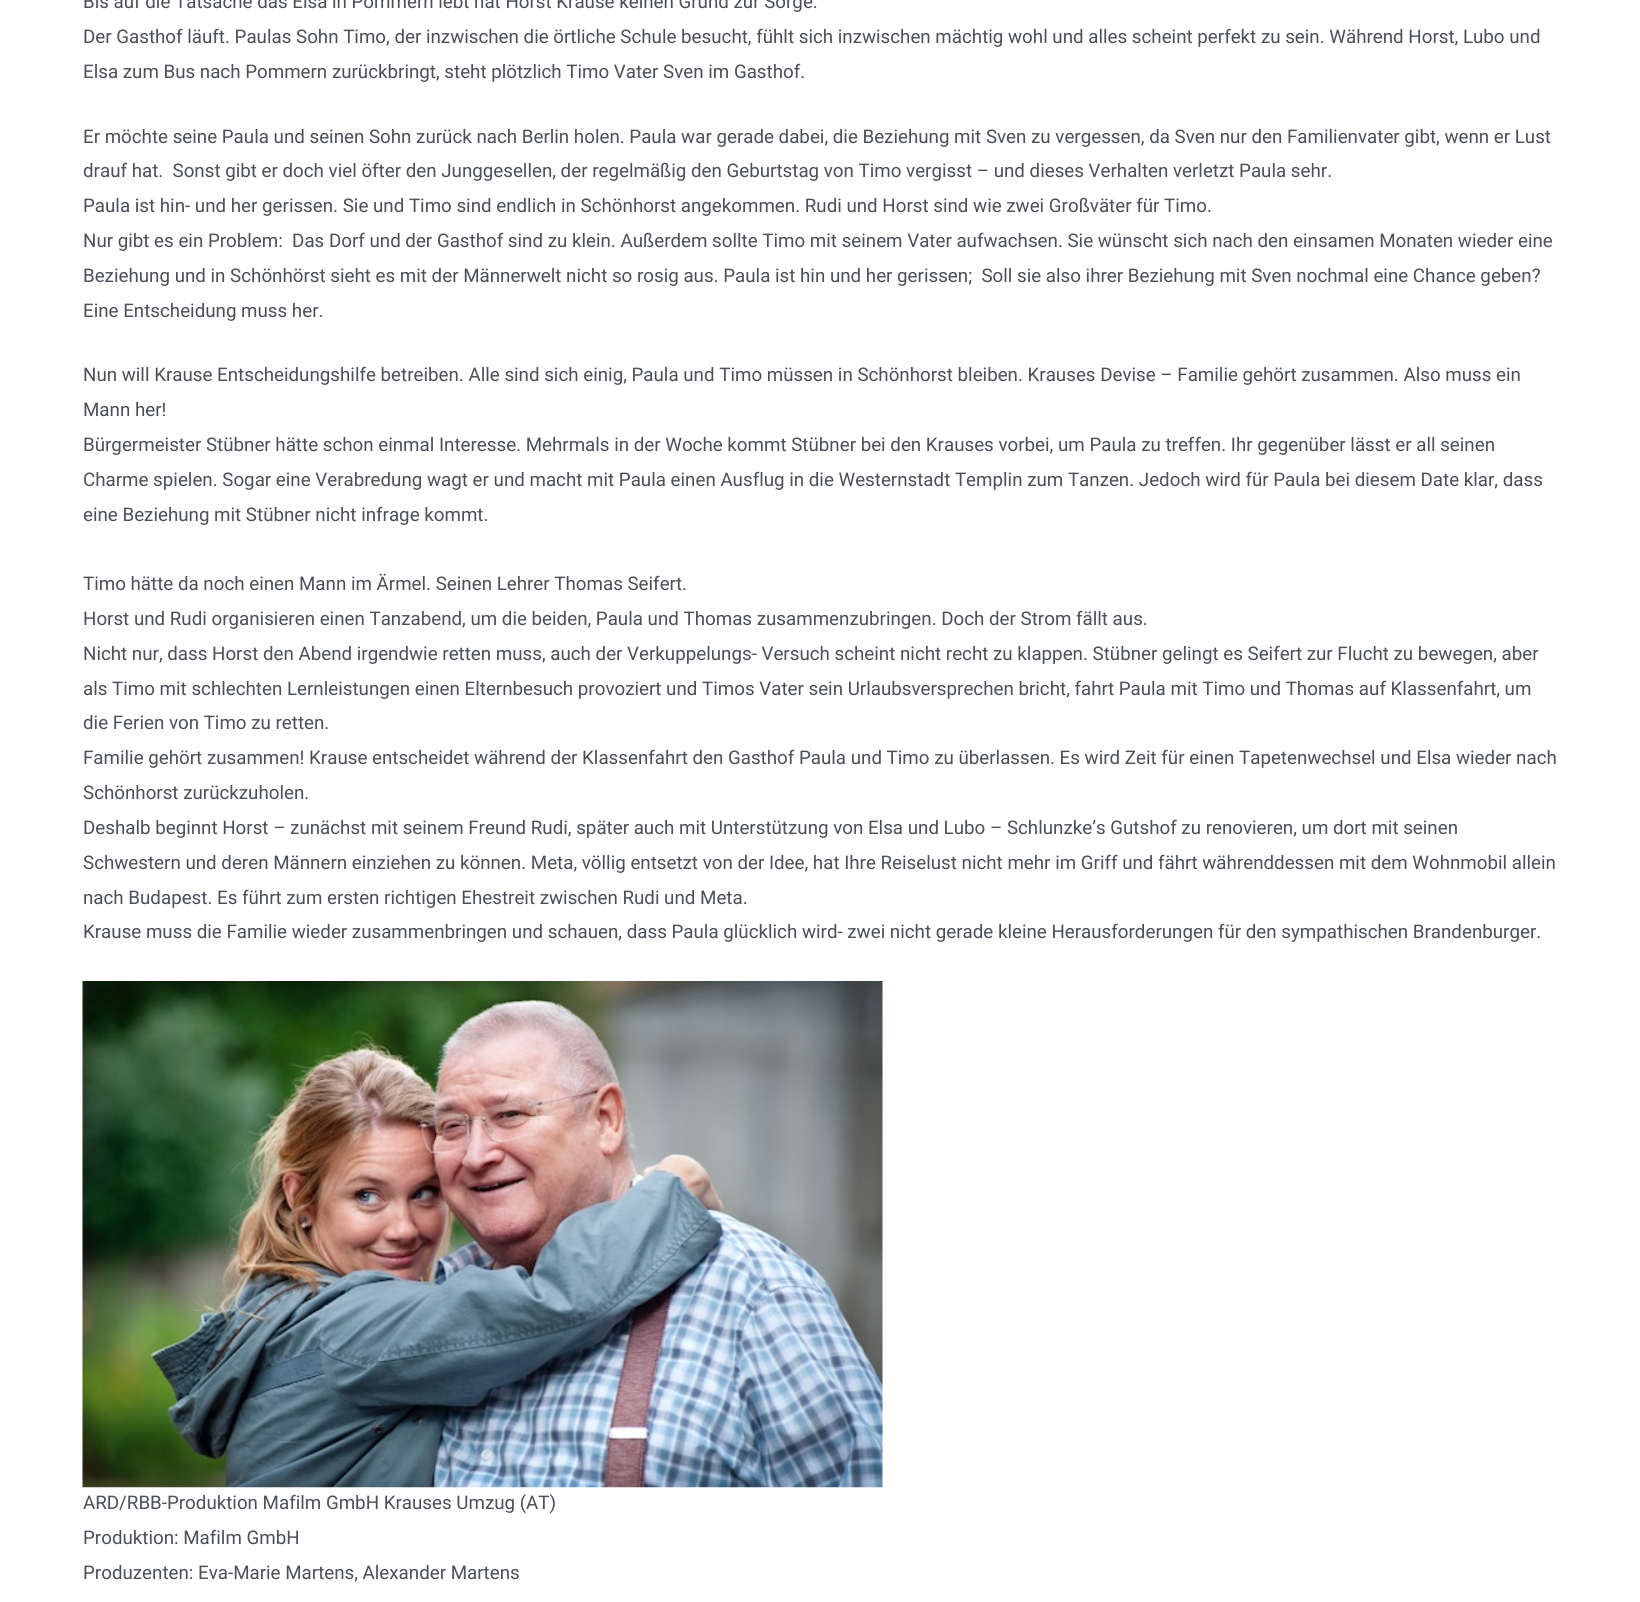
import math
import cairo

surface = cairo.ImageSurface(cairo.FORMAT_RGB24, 1640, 1602)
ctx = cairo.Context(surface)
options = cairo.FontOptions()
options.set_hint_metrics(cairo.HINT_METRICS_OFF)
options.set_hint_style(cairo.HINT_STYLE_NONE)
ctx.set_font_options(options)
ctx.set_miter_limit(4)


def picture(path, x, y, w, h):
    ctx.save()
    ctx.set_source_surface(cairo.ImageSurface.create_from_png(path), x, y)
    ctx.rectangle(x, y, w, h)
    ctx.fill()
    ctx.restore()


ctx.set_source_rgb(1, 1, 1)
ctx.paint()
ctx.select_font_face("Roboto")
ctx.set_font_size(18.75)
ctx.set_source_rgb(0.294, 0.31, 0.345)
ctx.move_to(83, 8)
ctx.show_text("Bis auf die Tatsache das Elsa in Pommern lebt hat Horst Krause keinen Grund zur Sorge.")
ctx.move_to(83, 43)
ctx.show_text("Der Gasthof läuft. Paulas Sohn Timo, der inzwischen die örtliche Schule besucht, fühlt sich inzwischen mächtig wohl und alles scheint perfekt zu sein. Während Horst, Lubo und")
ctx.move_to(83, 78)
ctx.show_text("Elsa zum Bus nach Pommern zurückbringt, steht plötzlich Timo Vater Sven im Gasthof.")
ctx.move_to(83, 143)
ctx.show_text("Er möchte seine Paula und seinen Sohn zurück nach Berlin holen. Paula war gerade dabei, die Beziehung mit Sven zu vergessen, da Sven nur den Familienvater gibt, wenn er Lust")
ctx.move_to(83, 177)
ctx.show_text("drauf hat.  Sonst gibt er doch viel öfter den Junggesellen, der regelmäßig den Geburtstag von Timo vergisst – und dieses Verhalten verletzt Paula sehr.")
ctx.move_to(83, 212)
ctx.show_text("Paula ist hin- und her gerissen. Sie und Timo sind endlich in Schönhorst angekommen. Rudi und Horst sind wie zwei Großväter für Timo.")
ctx.move_to(83, 247)
ctx.show_text("Nur gibt es ein Problem:  Das Dorf und der Gasthof sind zu klein. Außerdem sollte Timo mit seinem Vater aufwachsen. Sie wünscht sich nach den einsamen Monaten wieder eine")
ctx.move_to(83, 282)
ctx.show_text("Beziehung und in Schönhörst sieht es mit der Männerwelt nicht so rosig aus. Paula ist hin und her gerissen;  Soll sie also ihrer Beziehung mit Sven nochmal eine Chance geben?")
ctx.move_to(83, 317)
ctx.show_text("Eine Entscheidung muss her.")
ctx.move_to(83, 381)
ctx.show_text("Nun will Krause Entscheidungshilfe betreiben. Alle sind sich einig, Paula und Timo müssen in Schönhorst bleiben. Krauses Devise – Familie gehört zusammen. Also muss ein")
ctx.move_to(83, 416)
ctx.show_text("Mann her!")
ctx.move_to(83, 451)
ctx.show_text("Bürgermeister Stübner hätte schon einmal Interesse. Mehrmals in der Woche kommt Stübner bei den Krauses vorbei, um Paula zu treffen. Ihr gegenüber lässt er all seinen")
ctx.move_to(83, 486)
ctx.show_text("Charme spielen. Sogar eine Verabredung wagt er und macht mit Paula einen Ausflug in die Westernstadt Templin zum Tanzen. Jedoch wird für Paula bei diesem Date klar, dass")
ctx.move_to(83, 521)
ctx.show_text("eine Beziehung mit Stübner nicht infrage kommt.")
ctx.move_to(83, 590)
ctx.show_text("Timo hätte da noch einen Mann im Ärmel. Seinen Lehrer Thomas Seifert.")
ctx.move_to(83, 625)
ctx.show_text("Horst und Rudi organisieren einen Tanzabend, um die beiden, Paula und Thomas zusammenzubringen. Doch der Strom fällt aus.")
ctx.move_to(83, 660)
ctx.show_text("Nicht nur, dass Horst den Abend irgendwie retten muss, auch der Verkuppelungs- Versuch scheint nicht recht zu klappen. Stübner gelingt es Seifert zur Flucht zu bewegen, aber")
ctx.move_to(83, 695)
ctx.show_text("als Timo mit schlechten Lernleistungen einen Elternbesuch provoziert und Timos Vater sein Urlaubsversprechen bricht, fahrt Paula mit Timo und Thomas auf Klassenfahrt, um")
ctx.move_to(83, 729)
ctx.show_text("die Ferien von Timo zu retten.")
ctx.move_to(83, 764)
ctx.show_text("Familie gehört zusammen! Krause entscheidet während der Klassenfahrt den Gasthof Paula und Timo zu überlassen. Es wird Zeit für einen Tapetenwechsel und Elsa wieder nach")
ctx.move_to(83, 799)
ctx.show_text("Schönhorst zurückzuholen.")
ctx.move_to(83, 834)
ctx.show_text("Deshalb beginnt Horst – zunächst mit seinem Freund Rudi, später auch mit Unterstützung von Elsa und Lubo – Schlunzke’s Gutshof zu renovieren, um dort mit seinen")
ctx.move_to(83, 869)
ctx.show_text("Schwestern und deren Männern einziehen zu können. Meta, völlig entsetzt von der Idee, hat Ihre Reiselust nicht mehr im Griff und fährt währenddessen mit dem Wohnmobil allein")
ctx.move_to(83, 904)
ctx.show_text("nach Budapest. Es führt zum ersten richtigen Ehestreit zwischen Rudi und Meta.")
ctx.move_to(83, 938)
ctx.show_text("Krause muss die Familie wieder zusammenbringen und schauen, dass Paula glücklich wird- zwei nicht gerade kleine Herausforderungen für den sympathischen Brandenburger.")
picture("img1.png", 82, 981, 801, 507)
ctx.move_to(83, 1509)
ctx.show_text("ARD/RBB-Produktion Mafilm GmbH Krauses Umzug (AT)")
ctx.move_to(83, 1544)
ctx.show_text("Produktion: Mafilm GmbH")
ctx.move_to(83, 1579)
ctx.show_text("Produzenten: Eva-Marie Martens, Alexander Martens")
surface.write_to_png("page.png")
